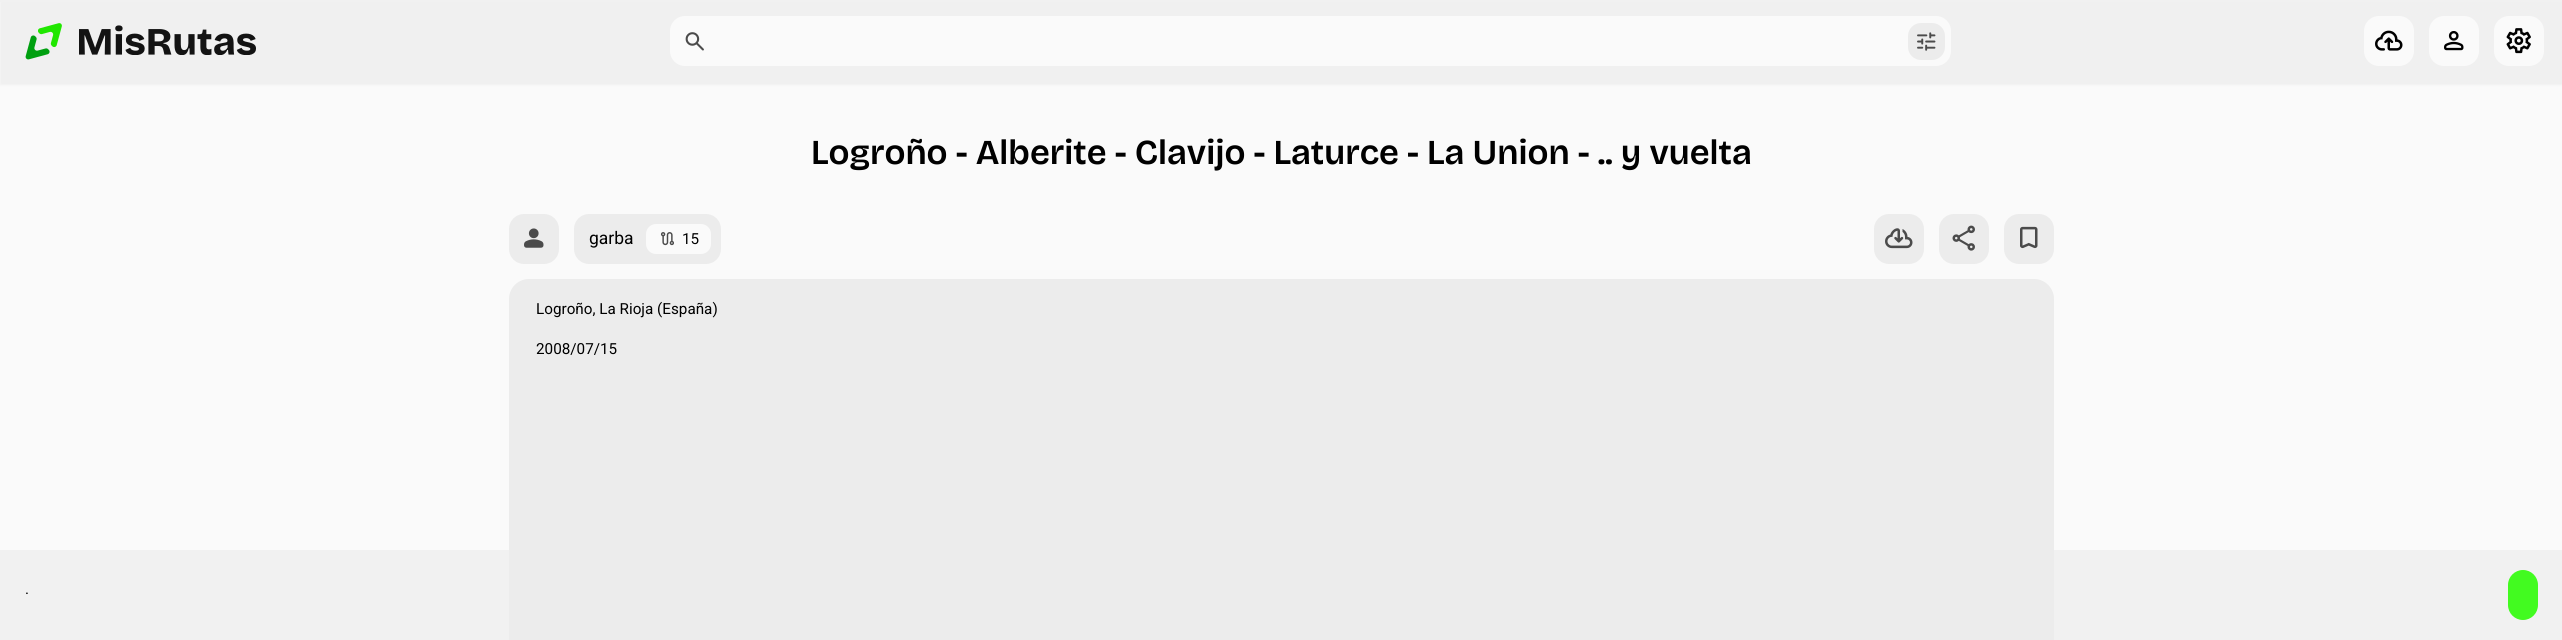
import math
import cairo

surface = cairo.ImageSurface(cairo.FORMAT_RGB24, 2562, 640)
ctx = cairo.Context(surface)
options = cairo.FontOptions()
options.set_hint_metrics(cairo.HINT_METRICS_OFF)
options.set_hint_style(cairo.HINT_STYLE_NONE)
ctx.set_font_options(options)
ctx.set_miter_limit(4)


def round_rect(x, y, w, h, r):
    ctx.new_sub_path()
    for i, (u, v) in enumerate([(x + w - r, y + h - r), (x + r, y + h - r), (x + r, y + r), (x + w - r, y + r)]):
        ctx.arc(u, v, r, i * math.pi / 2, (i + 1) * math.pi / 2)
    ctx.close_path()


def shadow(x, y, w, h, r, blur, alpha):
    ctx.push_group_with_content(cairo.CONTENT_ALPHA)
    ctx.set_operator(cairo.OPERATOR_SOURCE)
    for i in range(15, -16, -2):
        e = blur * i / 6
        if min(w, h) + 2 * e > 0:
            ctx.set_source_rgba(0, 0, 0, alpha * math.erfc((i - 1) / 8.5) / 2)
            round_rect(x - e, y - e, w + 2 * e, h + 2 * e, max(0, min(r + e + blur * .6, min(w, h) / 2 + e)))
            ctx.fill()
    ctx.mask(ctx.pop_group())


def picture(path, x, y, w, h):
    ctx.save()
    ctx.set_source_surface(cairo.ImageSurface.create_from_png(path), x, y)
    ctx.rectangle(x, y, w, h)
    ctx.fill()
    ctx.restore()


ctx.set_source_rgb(0.98, 0.98, 0.98)
ctx.paint()
ctx.set_source_rgb(0.945, 0.945, 0.945)
ctx.rectangle(0, 550, 2562, 90)
ctx.fill()
ctx.set_source_rgb(0.902, 0.902, 0.902)
shadow(0, 1, 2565, 84, 0, 1, 0.5)
ctx.set_source_rgb(0.945, 0.945, 0.945)
ctx.rectangle(0, 0, 2562, 2)
ctx.fill()
picture("img2.png", 25, 35, 25, 25)
picture("img1.png", 38, 23, 24, 25)
picture("img3.png", 79, 25, 177, 30)
ctx.set_source_rgb(0.98, 0.98, 0.98)
round_rect(670, 16, 1281, 50, 15)
ctx.fill()
picture("img4.png", 685, 32, 19, 19)
ctx.set_source_rgb(0.922, 0.922, 0.922)
round_rect(1908, 23, 37, 37, 13)
ctx.fill()
picture("img5.png", 1917, 32, 19, 19)
ctx.set_source_rgb(0.98, 0.98, 0.98)
round_rect(2364, 16, 50, 50, 15)
ctx.fill()
picture("img6.png", 2375, 30, 28, 21)
round_rect(2429, 16, 50, 50, 15)
ctx.fill()
picture("img7.png", 2444, 31, 20, 20)
round_rect(2494, 16, 50, 50, 15)
ctx.fill()
picture("img8.png", 2506, 28, 25, 26)
ctx.select_font_face("Bricolage Grotesque SemiBold")
ctx.set_font_size(35)
ctx.set_source_rgb(0, 0, 0)
ctx.move_to(811, 164)
ctx.show_text("Logroño - Alberite - Clavijo - Laturce - La Union - .. y vuelta")
ctx.set_source_rgb(0.922, 0.922, 0.922)
round_rect(509, 214, 50, 50, 15)
ctx.fill()
picture("img9.png", 524, 228, 20, 20)
round_rect(574, 214, 147, 50, 15)
ctx.fill()
ctx.select_font_face("Roboto")
ctx.set_font_size(17.5)
ctx.set_source_rgb(0, 0, 0)
ctx.move_to(589, 244)
ctx.show_text("garba")
ctx.set_source_rgb(0.98, 0.98, 0.98)
round_rect(646, 224, 65, 30, 10)
ctx.fill()
picture("img10.png", 660, 232, 14, 14)
ctx.set_font_size(15.25)
ctx.set_source_rgb(0, 0, 0)
ctx.move_to(682, 244)
ctx.show_text("15")
ctx.set_source_rgb(0.922, 0.922, 0.922)
round_rect(1874, 214, 50, 50, 15)
ctx.fill()
picture("img11.png", 1885, 228, 28, 21)
round_rect(1939, 214, 50, 50, 15)
ctx.fill()
picture("img12.png", 1952, 225, 23, 26)
round_rect(2004, 214, 50, 50, 15)
ctx.fill()
picture("img13.png", 2020, 226, 18, 23)
round_rect(509, 279, 1545, 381, 20)
ctx.fill()
ctx.set_source_rgb(0, 0, 0)
ctx.move_to(536, 314)
ctx.show_text("Logroño, La Rioja (España)")
ctx.move_to(536, 354)
ctx.show_text("2008/07/15")
ctx.move_to(25, 594)
ctx.show_text(".")
ctx.set_source_rgb(0.259, 0.984, 0.125)
round_rect(2508, 570, 30, 50, 15)
ctx.fill()
surface.write_to_png("page.png")
